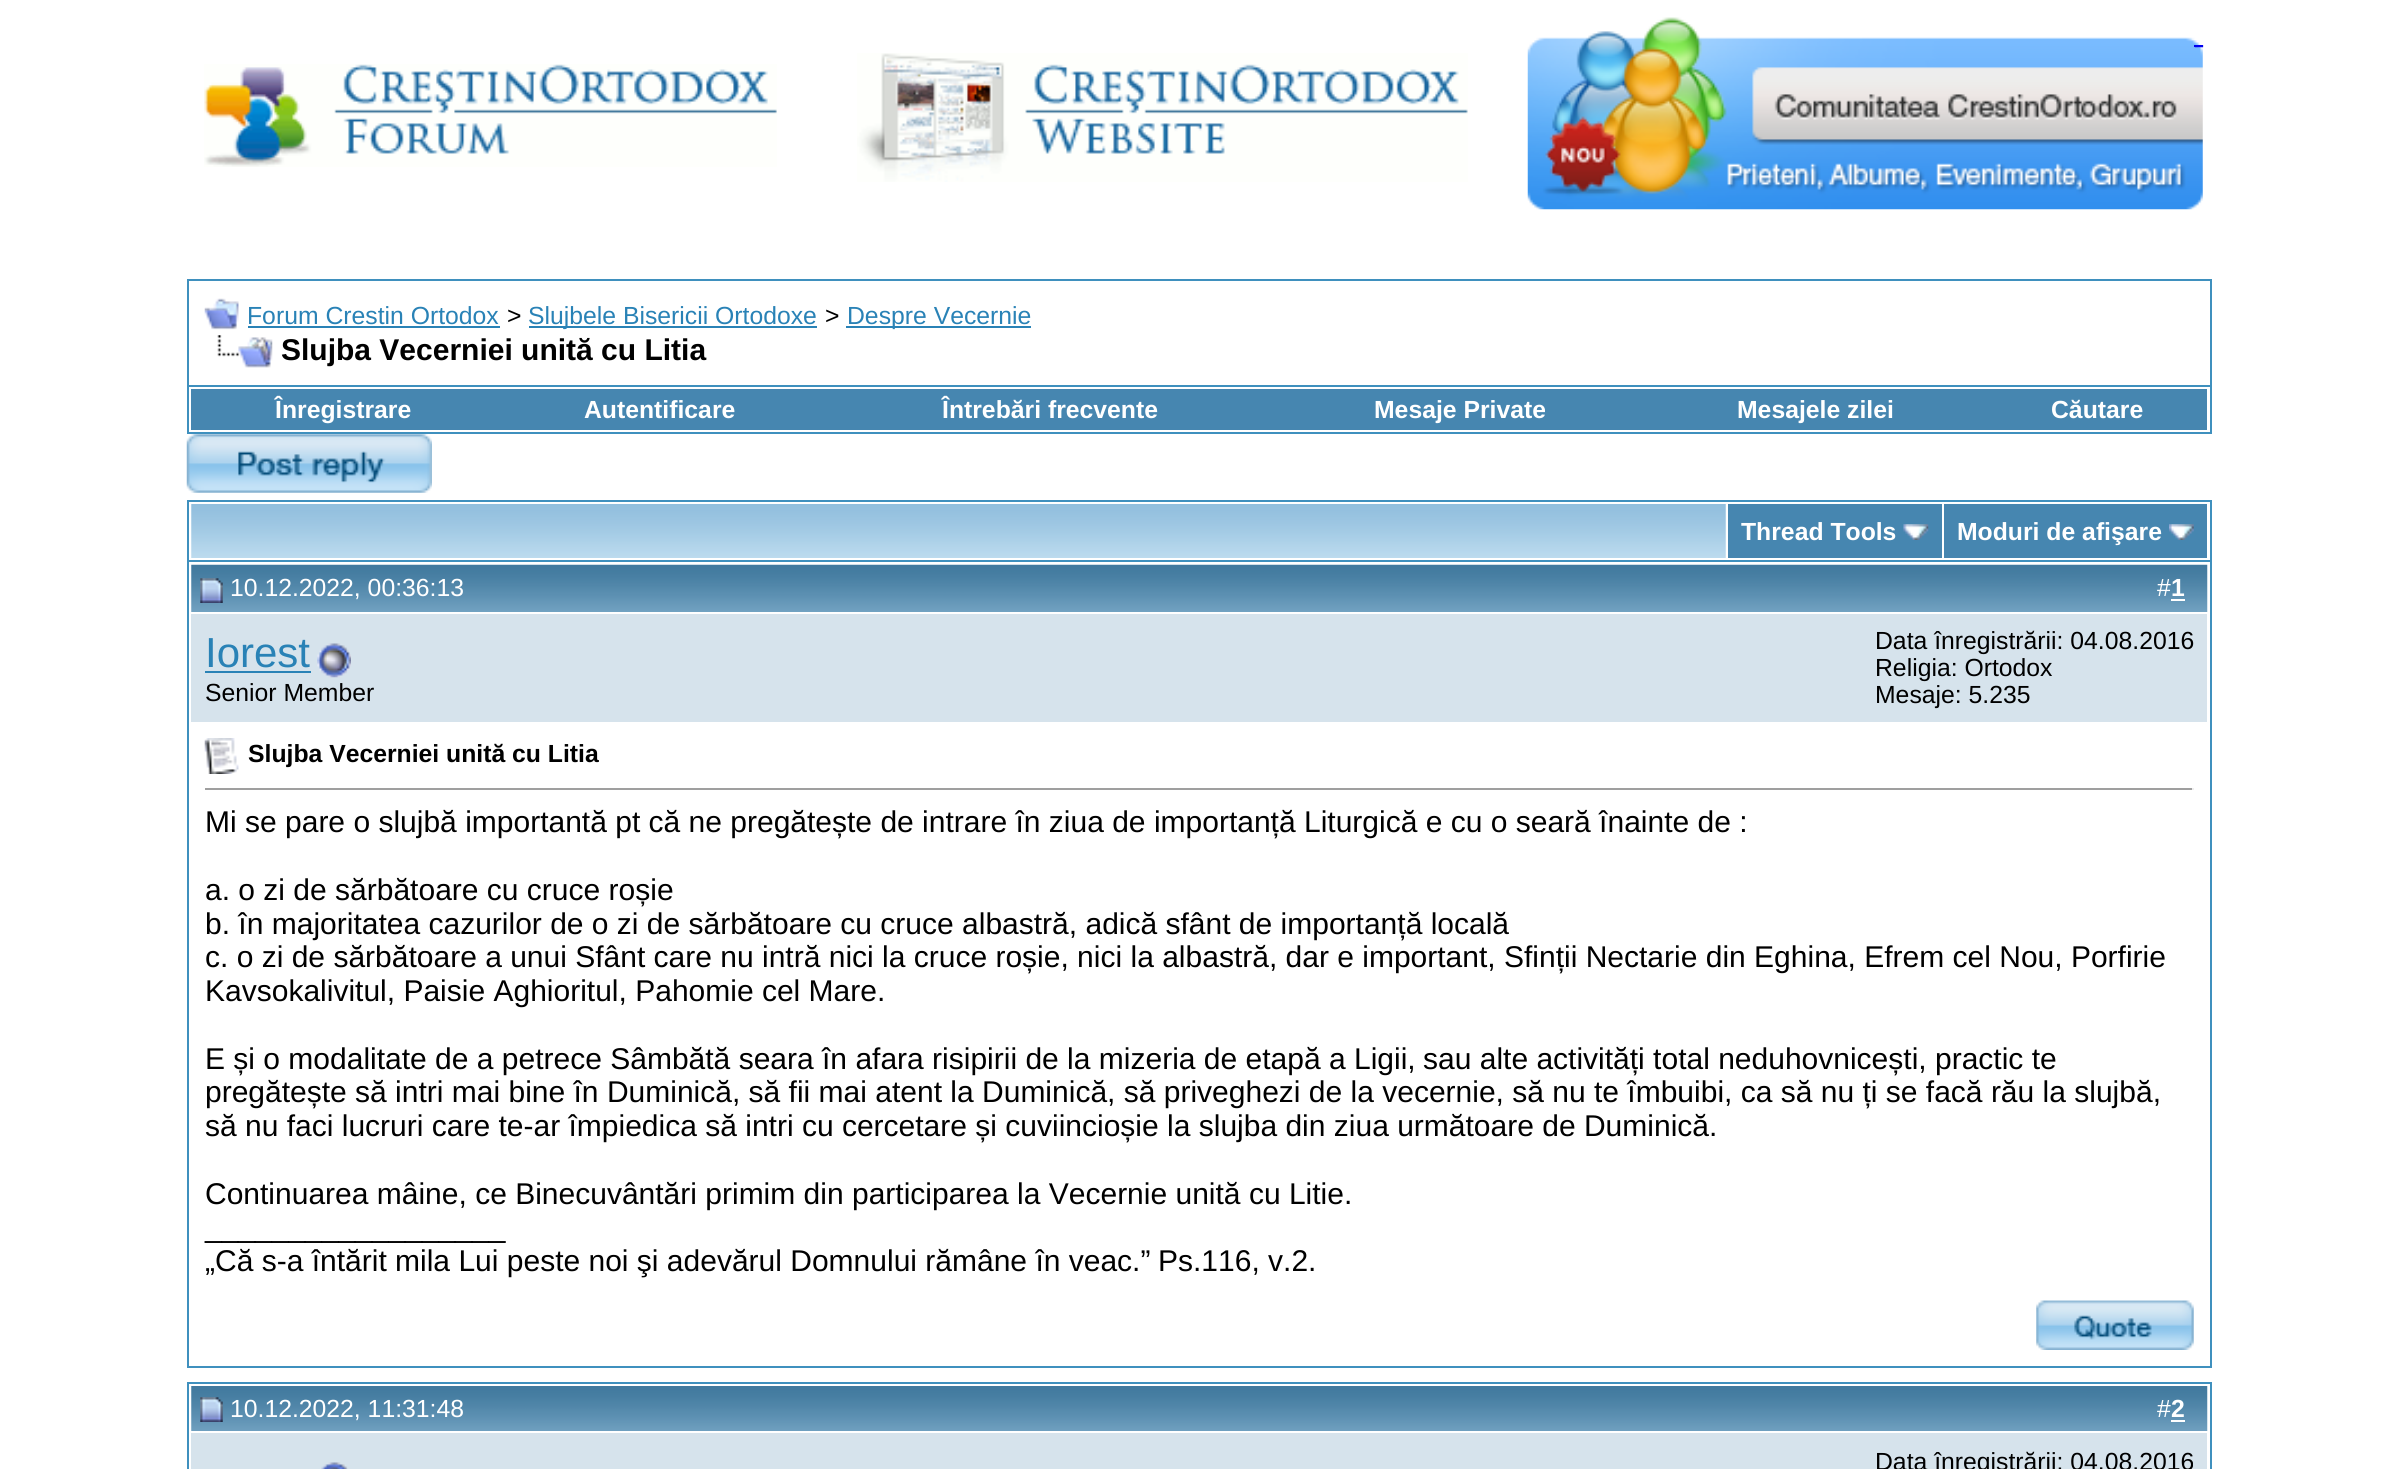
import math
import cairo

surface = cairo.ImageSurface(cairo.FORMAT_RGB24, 2398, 1469)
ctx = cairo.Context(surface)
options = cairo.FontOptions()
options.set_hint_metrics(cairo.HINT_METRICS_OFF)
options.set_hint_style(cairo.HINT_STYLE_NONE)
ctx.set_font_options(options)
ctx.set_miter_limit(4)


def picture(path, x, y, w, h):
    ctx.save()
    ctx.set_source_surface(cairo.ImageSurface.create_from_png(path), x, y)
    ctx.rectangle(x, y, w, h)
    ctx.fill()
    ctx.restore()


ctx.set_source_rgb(1, 1, 1)
ctx.paint()
picture("img1.png", 204, 64, 573, 103)
picture("img2.png", 857, 53, 611, 129)
picture("img3.png", 1527, 17, 677, 193)
ctx.set_source_rgb(0, 0, 0.933)
ctx.rectangle(2194, 45, 9, 2)
ctx.fill()
ctx.rectangle(188, 280, 2023, 106)
ctx.set_source_rgb(0.247, 0.565, 0.745)
ctx.stroke()
picture("img4.png", 204, 298, 35, 32)
ctx.select_font_face("Liberation Sans")
ctx.set_font_size(24.75)
ctx.set_source_rgb(0.161, 0.51, 0.714)
ctx.move_to(247, 324)
ctx.show_text("Forum Crestin Ortodox")
ctx.rectangle(248, 326, 252, 2)
ctx.fill()
ctx.set_source_rgb(0, 0, 0)
ctx.move_to(507, 324)
ctx.show_text(">")
ctx.set_source_rgb(0.161, 0.51, 0.714)
ctx.rectangle(529, 326, 288, 2)
ctx.fill()
ctx.move_to(528, 324)
ctx.show_text("Slujbele Bisericii Ortodoxe")
ctx.set_source_rgb(0, 0, 0)
ctx.move_to(825, 324)
ctx.show_text(">")
ctx.set_source_rgb(0.161, 0.51, 0.714)
ctx.rectangle(846, 326, 185, 2)
ctx.fill()
ctx.move_to(847, 324)
ctx.show_text("Despre Vecernie")
picture("img5.png", 217, 335, 56, 33)
ctx.select_font_face("Liberation Sans", cairo.FONT_SLANT_NORMAL, cairo.FONT_WEIGHT_BOLD)
ctx.set_font_size(30)
ctx.set_source_rgb(0, 0, 0)
ctx.move_to(281, 360)
ctx.show_text("Slujba Vecerniei unită cu Litia")
ctx.set_source_rgb(0.247, 0.565, 0.745)
ctx.rectangle(2210, 387, 2, 47)
ctx.fill()
ctx.rectangle(187, 432, 2025, 2)
ctx.fill()
ctx.rectangle(187, 387, 2, 47)
ctx.fill()
ctx.set_source_rgb(0.275, 0.525, 0.69)
ctx.rectangle(191, 389, 2016, 41)
ctx.fill()
ctx.set_font_size(24.75)
ctx.set_source_rgb(1, 1, 1)
ctx.move_to(275, 418)
ctx.show_text("Înregistrare")
ctx.move_to(584, 418)
ctx.show_text("Autentificare")
ctx.move_to(942, 418)
ctx.show_text("Întrebări frecvente")
ctx.move_to(1374, 418)
ctx.show_text("Mesaje Private")
ctx.move_to(1737, 418)
ctx.show_text("Mesajele zilei")
ctx.move_to(2051, 418)
ctx.show_text("Căutare")
picture("img6.png", 186, 434, 246, 59)
ctx.set_source_rgb(0.247, 0.565, 0.745)
ctx.rectangle(187, 500, 2025, 2)
ctx.fill()
ctx.rectangle(2210, 500, 2, 60)
ctx.fill()
ctx.rectangle(187, 500, 2, 60)
ctx.fill()
picture("img7.png", 191, 504, 1535, 54)
ctx.set_source_rgb(0.275, 0.525, 0.69)
ctx.rectangle(1728, 504, 214, 54)
ctx.fill()
ctx.set_source_rgb(1, 1, 1)
ctx.move_to(1741, 540)
ctx.show_text("Thread Tools")
picture("img8.png", 1903, 524, 26, 16)
ctx.set_source_rgb(0.275, 0.525, 0.69)
ctx.rectangle(1944, 504, 263, 54)
ctx.fill()
ctx.set_source_rgb(1, 1, 1)
ctx.move_to(1957, 540)
ctx.show_text("Moduri de afişare")
picture("img9.png", 2169, 524, 25, 16)
ctx.rectangle(188, 561, 2023, 806)
ctx.set_source_rgb(0.247, 0.565, 0.745)
ctx.stroke()
picture("img10.png", 191, 564, 2017, 48)
picture("img11.png", 200, 578, 23, 25)
ctx.select_font_face("Liberation Sans")
ctx.set_source_rgb(1, 1, 1)
ctx.move_to(230, 596)
ctx.show_text("10.12.2022, 00:36:13")
ctx.move_to(2157, 596)
ctx.show_text("#")
ctx.select_font_face("Liberation Sans", cairo.FONT_SLANT_NORMAL, cairo.FONT_WEIGHT_BOLD)
ctx.move_to(2171, 596)
ctx.show_text("1")
ctx.rectangle(2171, 599, 14, 2)
ctx.fill()
ctx.set_source_rgb(0.839, 0.89, 0.922)
ctx.rectangle(191, 614, 2016, 108)
ctx.fill()
ctx.select_font_face("Liberation Sans")
ctx.set_font_size(42)
ctx.set_source_rgb(0.161, 0.51, 0.714)
ctx.move_to(205, 667)
ctx.show_text("Iorest")
ctx.rectangle(205, 671, 106, 2)
ctx.fill()
picture("img12.png", 317, 643, 34, 35)
ctx.set_font_size(24.75)
ctx.set_source_rgb(0, 0, 0)
ctx.move_to(205, 701)
ctx.show_text("Senior Member")
ctx.move_to(1875, 649)
ctx.show_text("Data înregistrării: 04.08.2016")
ctx.move_to(1875, 676)
ctx.show_text("Religia: Ortodox")
ctx.move_to(1875, 703)
ctx.show_text("Mesaje: 5.235")
picture("img13.png", 204, 738, 35, 36)
ctx.select_font_face("Liberation Sans", cairo.FONT_SLANT_NORMAL, cairo.FONT_WEIGHT_BOLD)
ctx.move_to(248, 762)
ctx.show_text("Slujba Vecerniei unită cu Litia")
ctx.set_source_rgb(0.624, 0.624, 0.624)
ctx.rectangle(205, 788, 1989, 2)
ctx.fill()
ctx.set_source_rgb(0.933, 0.933, 0.933)
ctx.rectangle(2192, 788, 2, 2)
ctx.fill()
ctx.select_font_face("Liberation Sans")
ctx.set_font_size(30)
ctx.set_source_rgb(0, 0, 0)
ctx.move_to(205, 832)
ctx.show_text("Mi se pare o slujbă importantă pt că ne pregătește de intrare în ziua de importanță Liturgică e cu o seară înainte de :")
ctx.move_to(205, 900)
ctx.show_text("a. o zi de sărbătoare cu cruce roșie")
ctx.move_to(205, 934)
ctx.show_text("b. în majoritatea cazurilor de o zi de sărbătoare cu cruce albastră, adică sfânt de importanță locală")
ctx.move_to(205, 967)
ctx.show_text("c. o zi de sărbătoare a unui Sfânt care nu intră nici la cruce roșie, nici la albastră, dar e important, Sfinții Nectarie din Eghina, Efrem cel Nou, Porfirie")
ctx.move_to(205, 1001)
ctx.show_text("Kavsokalivitul, Paisie Aghioritul, Pahomie cel Mare.")
ctx.move_to(205, 1069)
ctx.show_text("E și o modalitate de a petrece Sâmbătă seara în afara risipirii de la mizeria de etapă a Ligii,")
ctx.move_to(1423, 1069)
ctx.show_text("sau alte activități total neduhovnicești, practic te")
ctx.move_to(205, 1102)
ctx.show_text("pregătește să intri mai bine în Duminică, să fii mai atent la Duminică, să priveghezi de la vecernie, să nu te îmbuibi, ca să nu ți se facă rău la slujbă,")
ctx.move_to(205, 1136)
ctx.show_text("să nu faci lucruri care te-ar împiedica să intri cu cercetare și cuviincioșie la slujba din ziua următoare de Duminică.")
ctx.move_to(205, 1204)
ctx.show_text("Continuarea mâine, ce Binecuvântări primim din participarea la Vecernie unită cu Litie.")
ctx.move_to(205, 1237)
ctx.show_text("__________________")
ctx.move_to(205, 1271)
ctx.show_text("„Că s-a întărit mila Lui peste noi şi adevărul Domnului rămâne în veac.”")
ctx.move_to(1158, 1271)
ctx.show_text("Ps.116, v.2.")
picture("img14.png", 2036, 1300, 158, 50)
ctx.rectangle(188, 1383, 2023, 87)
ctx.set_source_rgb(0.247, 0.565, 0.745)
ctx.stroke()
picture("img15.png", 191, 1386, 2017, 45)
picture("img16.png", 200, 1397, 23, 25)
ctx.set_font_size(24.75)
ctx.set_source_rgb(1, 1, 1)
ctx.move_to(230, 1417)
ctx.show_text("10.12.2022, 11:31:48")
ctx.move_to(2157, 1417)
ctx.show_text("#")
ctx.select_font_face("Liberation Sans", cairo.FONT_SLANT_NORMAL, cairo.FONT_WEIGHT_BOLD)
ctx.move_to(2171, 1417)
ctx.show_text("2")
ctx.rectangle(2171, 1420, 14, 2)
ctx.fill()
ctx.set_source_rgb(0.839, 0.89, 0.922)
ctx.rectangle(191, 1433, 2016, 36)
ctx.fill()
picture("img17.png", 321, 1462, 27, 7)
ctx.select_font_face("Liberation Sans")
ctx.set_source_rgb(0, 0, 0)
ctx.move_to(1875, 1470)
ctx.show_text("Data înregistrării: 04.08.2016")
surface.write_to_png("page.png")
